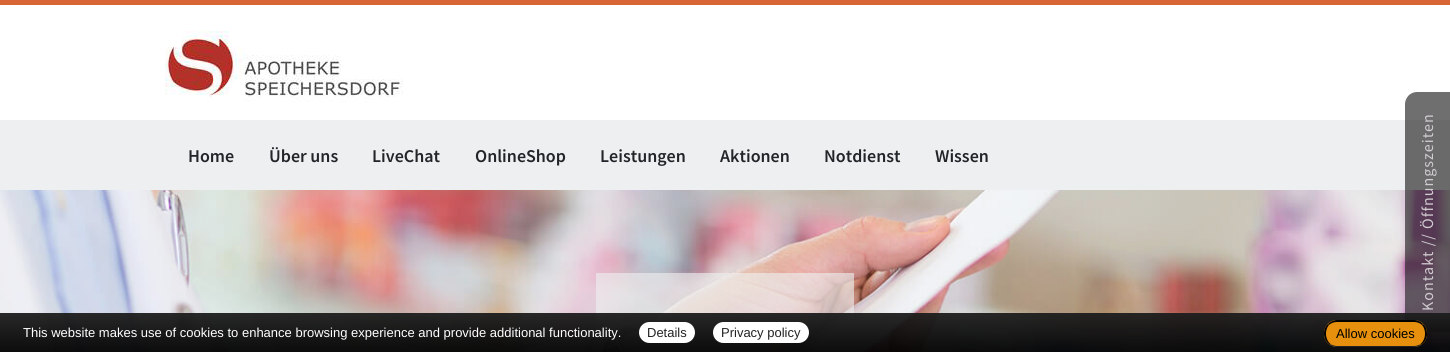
import math
import cairo

surface = cairo.ImageSurface(cairo.FORMAT_RGB24, 1450, 352)
ctx = cairo.Context(surface)
options = cairo.FontOptions()
options.set_hint_metrics(cairo.HINT_METRICS_OFF)
options.set_hint_style(cairo.HINT_STYLE_NONE)
ctx.set_font_options(options)
ctx.set_miter_limit(4)


def spaced_text(x, y, s, letter, word):
    ctx.move_to(x, y)
    for ch in s:
        ctx.show_text(ch)
        ctx.rel_move_to(letter + word * (ch == ' '), 0)


def round_rect(x, y, w, h, r):
    ctx.new_sub_path()
    for i, (u, v) in enumerate([(x + w - r, y + h - r), (x + r, y + h - r), (x + r, y + r), (x + w - r, y + r)]):
        ctx.arc(u, v, r, i * math.pi / 2, (i + 1) * math.pi / 2)
    ctx.close_path()


def picture(path, x, y, w, h):
    ctx.save()
    ctx.set_source_surface(cairo.ImageSurface.create_from_png(path), x, y)
    ctx.rectangle(x, y, w, h)
    ctx.fill()
    ctx.restore()


ctx.set_source_rgb(1, 1, 1)
ctx.paint()
ctx.set_source_rgb(0.843, 0.4, 0.204)
ctx.rectangle(0, 0, 1450, 5)
ctx.fill()
picture("img1.png", 165, 31, 239, 71)
ctx.set_source_rgb(0.933, 0.937, 0.941)
ctx.rectangle(0, 120, 1450, 70)
ctx.fill()
ctx.select_font_face("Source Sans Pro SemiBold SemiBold")
ctx.set_font_size(18)
ctx.set_source_rgb(0.129, 0.145, 0.161)
ctx.move_to(188, 162)
ctx.show_text("Home")
ctx.move_to(269, 162)
ctx.show_text("Über uns")
ctx.move_to(372, 162)
ctx.show_text("LiveChat")
ctx.move_to(475, 162)
ctx.show_text("OnlineShop")
ctx.move_to(600, 162)
ctx.show_text("Leistungen")
ctx.move_to(720, 162)
ctx.show_text("Aktionen")
ctx.move_to(824, 162)
ctx.show_text("Notdienst")
ctx.move_to(935, 162)
ctx.show_text("Wissen")
picture("img2.png", 0, 190, 1450, 162)
ctx.set_source_rgba(0.2, 0.2, 0.2, 0.7)
ctx.new_path()
ctx.move_to(1405, 320)
ctx.line_to(1405, 104)
ctx.curve_to(1405, 98, 1410, 92, 1417, 92)
ctx.line_to(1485, 92)
ctx.line_to(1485, 332)
ctx.line_to(1417, 332)
ctx.curve_to(1410, 332, 1405, 327, 1405, 320)
ctx.close_path()
ctx.fill()
ctx.select_font_face("Source Sans Pro")
ctx.set_font_size(16)
ctx.set_source_rgb(0.816, 0.8, 0.816)
ctx.save()
ctx.translate(1433, 311)
ctx.rotate(-90 * math.pi / 180)
spaced_text(0, 0, "Kontakt // Öffnungszeiten", 1, 0)
ctx.restore()
ctx.set_source_rgba(0.933, 0.937, 0.941, 0.63)
round_rect(596, 273, 258, 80, 1)
ctx.fill()
gradient = cairo.LinearGradient(725, 313, 725, 352)
gradient.add_color_stop_rgba(0, 0.118, 0.118, 0.118, 0.95)
gradient.add_color_stop_rgba(1, 0, 0, 0, 0.95)
ctx.set_source(gradient)
ctx.rectangle(0, 313, 1450, 39)
ctx.fill()
ctx.select_font_face("Liberation Sans")
ctx.set_font_size(13)
ctx.set_source_rgb(1, 1, 1)
ctx.move_to(23, 337)
ctx.show_text("This website makes use of cookies to enhance browsing experience and provide additional functionality.")
round_rect(639, 322, 56, 21, 10.5)
ctx.fill()
ctx.set_source_rgb(0.133, 0.133, 0.133)
ctx.move_to(647, 337)
ctx.show_text("Details")
ctx.set_source_rgb(1, 1, 1)
round_rect(713, 322, 96, 21, 10.5)
ctx.fill()
ctx.set_source_rgb(0.133, 0.133, 0.133)
ctx.move_to(721, 337)
ctx.show_text("Privacy policy")
ctx.set_source_rgb(0.902, 0.565, 0.055)
round_rect(1324, 320, 103, 27, 13)
ctx.fill()
ctx.set_source_rgb(0, 0, 0)
ctx.new_path()
ctx.move_to(1337, 320)
ctx.curve_to(1334, 320, 1330, 322, 1328, 324)
ctx.line_to(1329, 325)
ctx.curve_to(1331, 323, 1334, 322, 1337, 322)
ctx.line_to(1414, 322)
ctx.curve_to(1417, 322, 1420, 323, 1422, 325)
ctx.line_to(1423, 324)
ctx.curve_to(1421, 322, 1418, 320, 1414, 320)
ctx.close_path()
ctx.fill()
ctx.new_path()
ctx.move_to(1427, 334)
ctx.curve_to(1427, 330, 1426, 326.5, 1423, 324)
ctx.line_to(1422, 325)
ctx.curve_to(1426.5, 330, 1426, 339.5, 1420.5, 344)
ctx.line_to(1421.5, 344.5)
ctx.curve_to(1425, 342, 1427, 338, 1427, 334)
ctx.close_path()
ctx.fill()
ctx.set_source_rgb(0.133, 0.133, 0.133)
ctx.new_path()
ctx.move_to(1337, 347)
ctx.line_to(1414, 347)
ctx.curve_to(1417, 347, 1420, 346, 1422, 344)
ctx.line_to(1421, 344)
ctx.curve_to(1419, 345, 1416, 346, 1414, 346)
ctx.line_to(1337, 346)
ctx.curve_to(1335, 346, 1332, 345, 1330, 344)
ctx.line_to(1329, 344)
ctx.curve_to(1331, 346, 1334, 347, 1337, 347)
ctx.close_path()
ctx.fill()
ctx.set_source_rgb(0, 0, 0)
ctx.new_path()
ctx.move_to(1324, 333)
ctx.curve_to(1324, 337.5, 1325.5, 341.5, 1329.5, 344.5)
ctx.line_to(1330.5, 344)
ctx.curve_to(1325, 339.5, 1324.5, 330, 1329, 325)
ctx.line_to(1328, 324)
ctx.curve_to(1325.5, 326, 1324, 329.5, 1324, 333)
ctx.close_path()
ctx.fill()
ctx.move_to(1336, 338)
ctx.show_text("Allow cookies")
surface.write_to_png("page.png")
